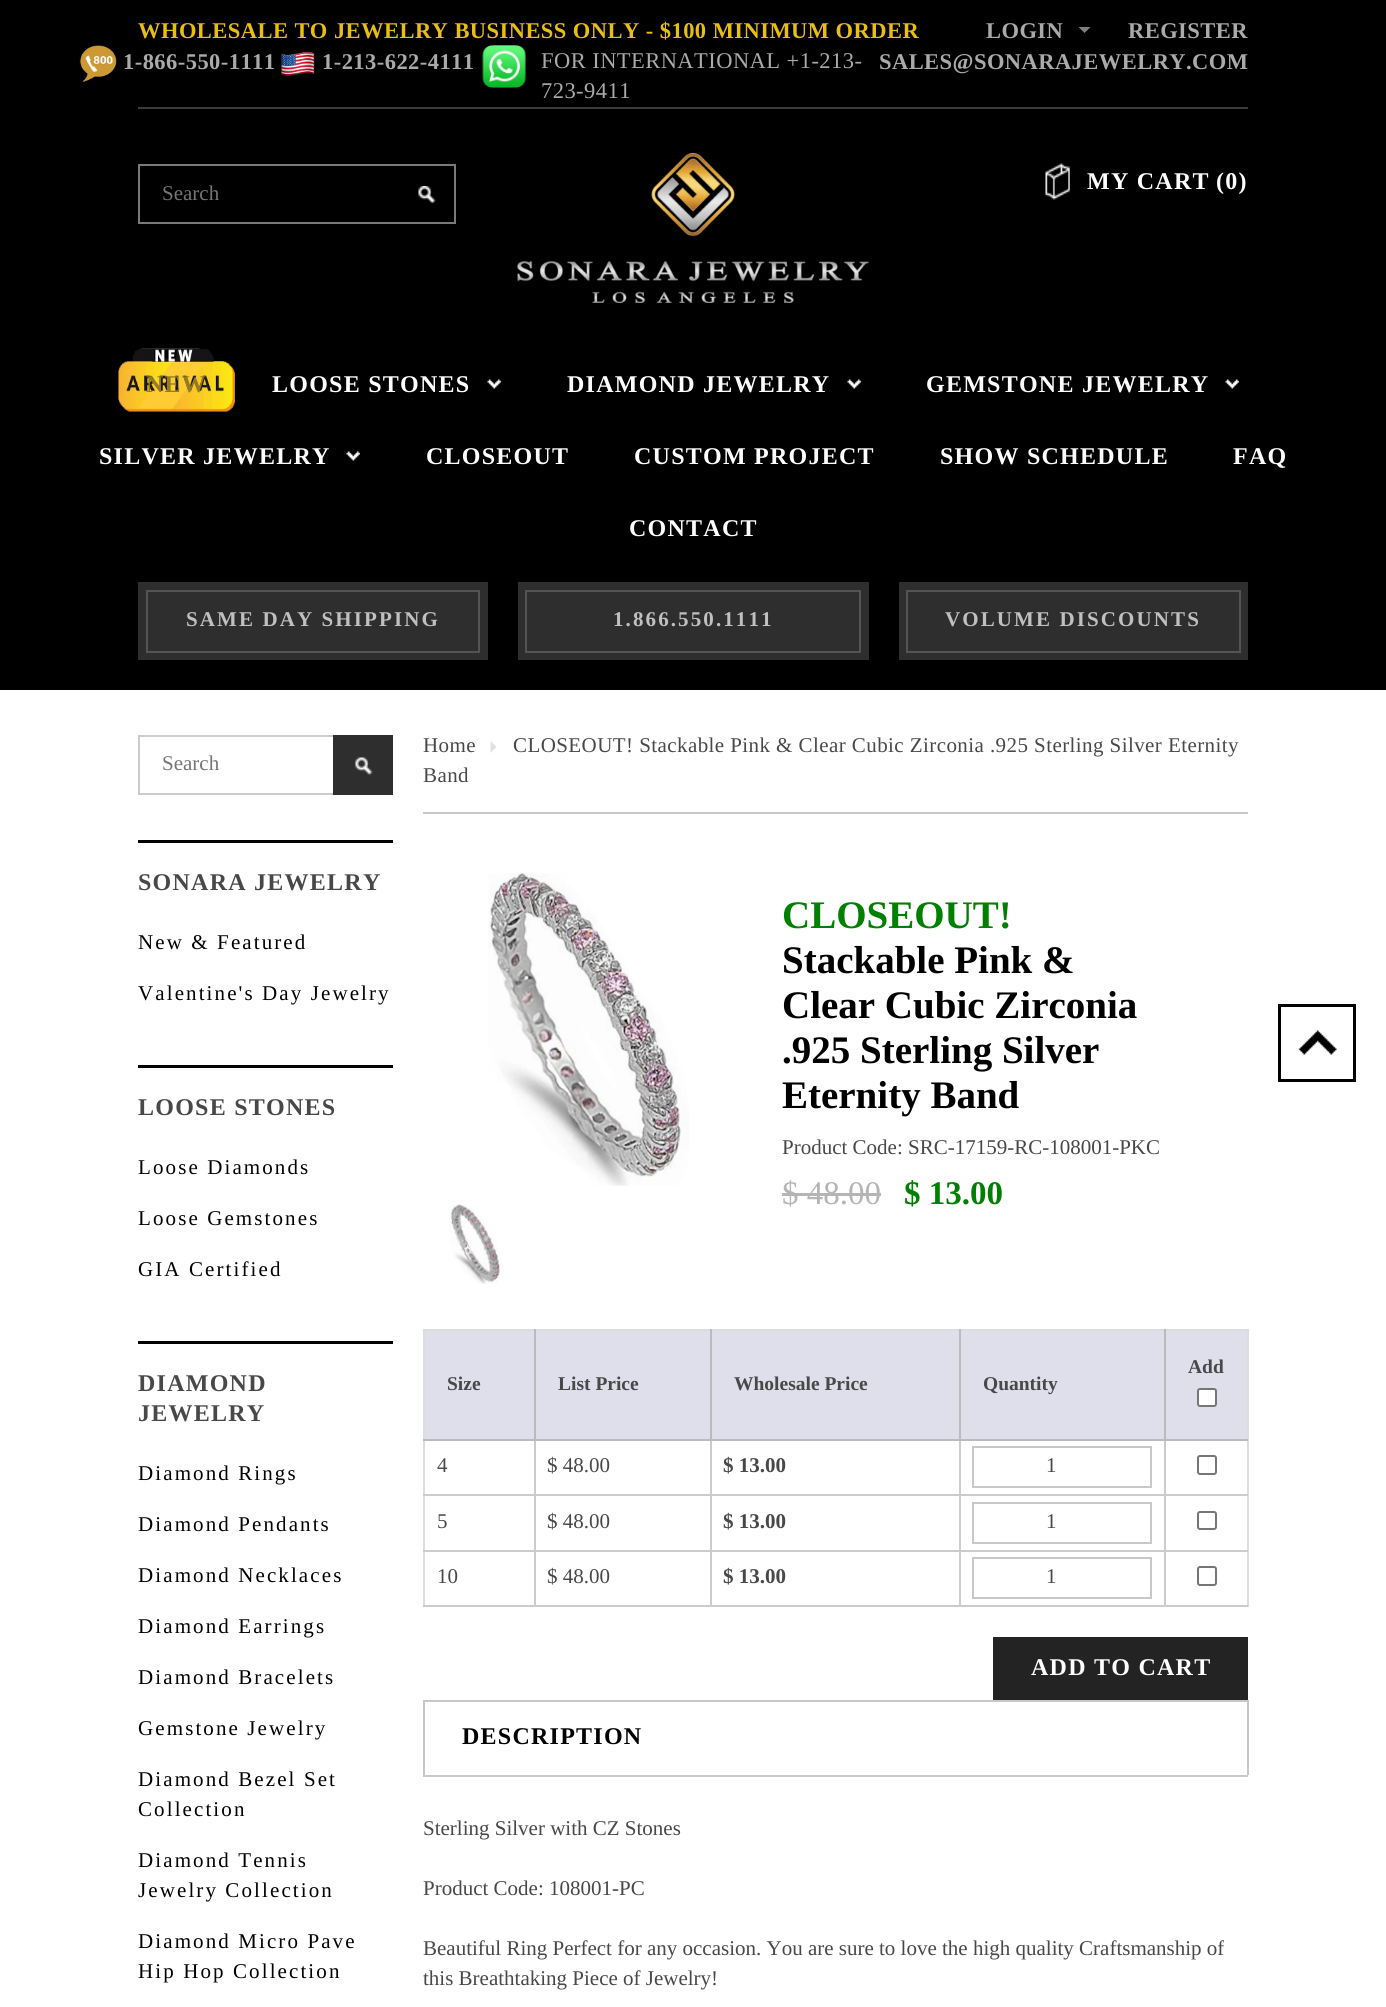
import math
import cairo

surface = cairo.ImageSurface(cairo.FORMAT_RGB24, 1386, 2007)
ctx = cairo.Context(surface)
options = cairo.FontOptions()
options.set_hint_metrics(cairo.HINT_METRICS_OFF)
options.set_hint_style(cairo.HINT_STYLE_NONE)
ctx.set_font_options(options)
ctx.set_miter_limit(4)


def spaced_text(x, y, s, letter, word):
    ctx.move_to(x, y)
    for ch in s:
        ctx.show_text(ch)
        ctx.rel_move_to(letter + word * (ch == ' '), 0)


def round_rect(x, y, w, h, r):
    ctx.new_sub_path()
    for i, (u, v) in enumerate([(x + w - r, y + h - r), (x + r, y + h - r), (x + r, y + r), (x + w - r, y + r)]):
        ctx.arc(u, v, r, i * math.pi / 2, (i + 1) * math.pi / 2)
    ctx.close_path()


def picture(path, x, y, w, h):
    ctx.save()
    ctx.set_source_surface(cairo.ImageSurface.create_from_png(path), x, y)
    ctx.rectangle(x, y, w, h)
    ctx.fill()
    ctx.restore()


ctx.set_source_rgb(1, 1, 1)
ctx.paint()
ctx.set_source_rgb(0, 0, 0)
ctx.rectangle(0, 0, 1386, 690)
ctx.fill()
ctx.set_source_rgb(0.227, 0.227, 0.227)
ctx.rectangle(138, 107, 1110, 2)
ctx.fill()
ctx.select_font_face("Liberation Serif", cairo.FONT_SLANT_NORMAL, cairo.FONT_WEIGHT_BOLD)
ctx.set_font_size(22.5)
ctx.set_source_rgb(0.91, 0.745, 0.075)
spaced_text(138, 38, "WHOLESALE TO JEWELRY BUSINESS ONLY - $100 MINIMUM ORDER", 0.45, 0)
ctx.set_source_rgb(0.667, 0.667, 0.667)
spaced_text(986, 38, "LOGIN", 0.45, 0)
ctx.set_source_rgb(0.502, 0.502, 0.502)
ctx.new_path()
ctx.move_to(1078.5, 27)
ctx.line_to(1090.5, 27)
ctx.line_to(1084.5, 33)
ctx.close_path()
ctx.fill()
ctx.set_source_rgb(0.667, 0.667, 0.667)
spaced_text(1128, 38, "REGISTER", 0.45, 0)
picture("img1.png", 80, 45, 37, 37)
spaced_text(123, 69, "1-866-550-1111", 0.45, 0)
picture("img2.png", 281, 51, 34, 25)
spaced_text(322, 69, "1-213-622-4111", 0.45, 0)
picture("img3.png", 482, 45, 44, 43)
ctx.select_font_face("Liberation Serif")
spaced_text(541, 68, "FOR INTERNATIONAL +1-213-", 0.45, 0)
spaced_text(541, 98, "723-9411", 0.45, 0)
ctx.select_font_face("Liberation Serif", cairo.FONT_SLANT_NORMAL, cairo.FONT_WEIGHT_BOLD)
spaced_text(879, 69, "SALES@SONARAJEWELRY.COM", 0.45, 0)
ctx.rectangle(139, 165, 316, 58)
ctx.set_source_rgb(0.475, 0.475, 0.475)
ctx.stroke()
ctx.select_font_face("Liberation Serif")
ctx.set_font_size(21)
ctx.set_source_rgb(0.459, 0.459, 0.459)
ctx.move_to(162, 200)
ctx.show_text("Search")
picture("img4.png", 418, 186, 18, 18)
picture("img5.png", 517, 153, 352, 150)
picture("img6.png", 1045, 163, 25, 37)
ctx.select_font_face("Liberation Serif", cairo.FONT_SLANT_NORMAL, cairo.FONT_WEIGHT_BOLD)
ctx.set_font_size(24)
ctx.set_source_rgb(1, 1, 1)
spaced_text(1087, 189, "MY CART", 1.25, 0)
spaced_text(1216, 189, "(0)", 1.25, 0)
picture("img7.png", 118, 348, 117, 64)
ctx.set_source_rgb(0.588, 0.482, 0.125)
spaced_text(146, 392, "NEW", 1.25, 0)
ctx.set_source_rgb(1, 1, 1)
spaced_text(272, 392, "LOOSE STONES", 1.25, 0)
picture("img8.png", 487, 379, 14, 10)
spaced_text(567, 392, "DIAMOND JEWELRY", 1.25, 0)
picture("img8.png", 847, 379, 14, 10)
spaced_text(926, 392, "GEMSTONE JEWELRY", 1.25, 0)
picture("img8.png", 1225, 379, 14, 10)
spaced_text(99, 464, "SILVER JEWELRY", 1.25, 0)
picture("img8.png", 346, 451, 14, 10)
spaced_text(426, 464, "CLOSEOUT", 1.25, 0)
spaced_text(634, 464, "CUSTOM PROJECT", 1.25, 0)
spaced_text(940, 464, "SHOW SCHEDULE", 1.25, 0)
spaced_text(1233, 464, "FAQ", 1.25, 0)
spaced_text(629, 536, "CONTACT", 1.25, 0)
ctx.set_source_rgb(0.18, 0.18, 0.18)
ctx.rectangle(138, 582, 350, 78)
ctx.fill()
ctx.rectangle(147, 591, 332, 61)
ctx.set_source_rgb(0.329, 0.329, 0.329)
ctx.stroke()
ctx.set_font_size(21)
ctx.set_source_rgb(0.753, 0.753, 0.753)
spaced_text(186, 626, "SAME DAY SHIPPING", 2.1, 0)
ctx.set_source_rgb(0.18, 0.18, 0.18)
ctx.rectangle(518, 582, 351, 78)
ctx.fill()
ctx.rectangle(526, 591, 334, 61)
ctx.set_source_rgb(0.329, 0.329, 0.329)
ctx.stroke()
ctx.set_source_rgb(0.753, 0.753, 0.753)
spaced_text(613, 626, "1.866.550.1111", 2.1, 0)
ctx.set_source_rgb(0.18, 0.18, 0.18)
ctx.rectangle(899, 582, 349, 78)
ctx.fill()
ctx.rectangle(907, 591, 333, 61)
ctx.set_source_rgb(0.329, 0.329, 0.329)
ctx.stroke()
ctx.set_source_rgb(0.753, 0.753, 0.753)
spaced_text(945, 626, "VOLUME DISCOUNTS", 2.1, 0)
ctx.rectangle(139, 736, 253, 58)
ctx.set_source_rgb(0.8, 0.8, 0.8)
ctx.stroke()
ctx.select_font_face("Liberation Serif")
ctx.set_source_rgb(0.459, 0.459, 0.459)
ctx.move_to(162, 770)
ctx.show_text("Search")
ctx.set_source_rgb(0.18, 0.18, 0.18)
ctx.rectangle(333, 735, 60, 60)
ctx.fill()
picture("img9.png", 355, 757, 18, 19)
ctx.set_source_rgb(0, 0, 0)
ctx.rectangle(138, 840, 255, 3)
ctx.fill()
ctx.select_font_face("Liberation Serif", cairo.FONT_SLANT_NORMAL, cairo.FONT_WEIGHT_BOLD)
ctx.set_font_size(24)
ctx.set_source_rgb(0.282, 0.282, 0.282)
spaced_text(138, 890, "SONARA JEWELRY", 1.25, 0)
ctx.select_font_face("Liberation Serif")
ctx.set_font_size(21)
ctx.set_source_rgb(0, 0, 0)
spaced_text(138, 949, "New & Featured", 2.1, 0)
spaced_text(138, 1000, "Valentine's Day Jewelry", 2.1, 0)
ctx.rectangle(138, 1065, 255, 3)
ctx.fill()
ctx.select_font_face("Liberation Serif", cairo.FONT_SLANT_NORMAL, cairo.FONT_WEIGHT_BOLD)
ctx.set_font_size(24)
ctx.set_source_rgb(0.282, 0.282, 0.282)
spaced_text(138, 1115, "LOOSE STONES", 1.25, 0)
ctx.select_font_face("Liberation Serif")
ctx.set_font_size(21)
ctx.set_source_rgb(0, 0, 0)
spaced_text(138, 1174, "Loose Diamonds", 2.1, 0)
spaced_text(138, 1225, "Loose Gemstones", 2.1, 0)
spaced_text(138, 1276, "GIA Certified", 2.1, 0)
ctx.rectangle(138, 1341, 255, 3)
ctx.fill()
ctx.select_font_face("Liberation Serif", cairo.FONT_SLANT_NORMAL, cairo.FONT_WEIGHT_BOLD)
ctx.set_font_size(24)
ctx.set_source_rgb(0.282, 0.282, 0.282)
spaced_text(138, 1391, "DIAMOND", 1.25, 0)
spaced_text(138, 1421, "JEWELRY", 1.25, 0)
ctx.select_font_face("Liberation Serif")
ctx.set_font_size(21)
ctx.set_source_rgb(0, 0, 0)
spaced_text(138, 1480, "Diamond Rings", 2.1, 0)
spaced_text(138, 1531, "Diamond Pendants", 2.1, 0)
spaced_text(138, 1582, "Diamond Necklaces", 2.1, 0)
spaced_text(138, 1633, "Diamond Earrings", 2.1, 0)
spaced_text(138, 1684, "Diamond Bracelets", 2.1, 0)
spaced_text(138, 1735, "Gemstone Jewelry", 2.1, 0)
spaced_text(138, 1786, "Diamond Bezel Set", 2.1, 0)
spaced_text(138, 1816, "Collection", 2.1, 0)
spaced_text(138, 1867, "Diamond Tennis", 2.1, 0)
spaced_text(138, 1897, "Jewelry Collection", 2.1, 0)
spaced_text(138, 1948, "Diamond Micro Pave", 2.1, 0)
spaced_text(138, 1978, "Hip Hop Collection", 2.1, 0)
ctx.set_source_rgb(0.784, 0.784, 0.784)
ctx.rectangle(423, 812, 825, 2)
ctx.fill()
ctx.set_source_rgb(0.282, 0.282, 0.282)
spaced_text(423, 752, "Home", 0.42, 0)
ctx.set_source_rgb(0.878, 0.878, 0.878)
ctx.new_path()
ctx.move_to(490.5, 753)
ctx.line_to(490.5, 741)
ctx.line_to(496.5, 747)
ctx.close_path()
ctx.fill()
ctx.set_source_rgb(0.282, 0.282, 0.282)
spaced_text(513, 752, "CLOSEOUT! Stackable Pink & Clear Cubic Zirconia .925 Sterling Silver Eternity", 0.42, 0)
spaced_text(423, 782, "Band", 0.42, 0)
picture("img10.png", 488, 873, 201, 313)
picture("img11.png", 449, 1204, 53, 80)
ctx.select_font_face("Liberation Serif", cairo.FONT_SLANT_NORMAL, cairo.FONT_WEIGHT_BOLD)
ctx.set_font_size(39)
ctx.set_source_rgb(0, 0.502, 0)
ctx.move_to(782, 928)
ctx.show_text("CLOSEOUT!")
ctx.set_source_rgb(0, 0, 0)
ctx.move_to(782, 973)
ctx.show_text("Stackable Pink &")
ctx.move_to(782, 1018)
ctx.show_text("Clear Cubic Zirconia")
ctx.move_to(782, 1063)
ctx.show_text(".925 Sterling Silver")
ctx.move_to(782, 1108)
ctx.show_text("Eternity Band")
ctx.select_font_face("Liberation Serif")
ctx.set_font_size(21)
ctx.set_source_rgb(0.282, 0.282, 0.282)
ctx.move_to(782, 1154)
ctx.show_text("Product Code: SRC-17159-RC-108001-PKC")
ctx.set_font_size(33)
ctx.set_source_rgb(0.71, 0.71, 0.71)
ctx.move_to(782, 1204)
ctx.show_text("$ 48.00")
ctx.rectangle(782, 1193, 99, 3)
ctx.fill()
ctx.select_font_face("Liberation Serif", cairo.FONT_SLANT_NORMAL, cairo.FONT_WEIGHT_BOLD)
ctx.set_source_rgb(0, 0.502, 0)
ctx.move_to(904, 1204)
ctx.show_text("$ 13.00")
ctx.set_source_rgb(0.867, 0.867, 0.867)
ctx.rectangle(423, 1329, 825, 2)
ctx.fill()
ctx.rectangle(1247, 1329, 2, 278)
ctx.fill()
ctx.rectangle(423, 1329, 2, 278)
ctx.fill()
ctx.set_source_rgb(0.875, 0.871, 0.918)
ctx.rectangle(1166, 1331, 81, 108)
ctx.fill()
ctx.set_source_rgb(0.8, 0.8, 0.8)
ctx.rectangle(1164, 1605, 84, 2)
ctx.fill()
ctx.rectangle(1164, 1550, 2, 57)
ctx.fill()
ctx.rectangle(1164, 1550, 84, 2)
ctx.fill()
ctx.rectangle(1164, 1494, 2, 57)
ctx.fill()
ctx.rectangle(1164, 1494, 84, 2)
ctx.fill()
ctx.rectangle(1164, 1439, 2, 57)
ctx.fill()
ctx.set_source_rgb(0.733, 0.733, 0.733)
ctx.rectangle(1164, 1439, 84, 2)
ctx.fill()
ctx.set_font_size(19.5)
ctx.set_source_rgb(0.282, 0.282, 0.282)
ctx.move_to(1188, 1373)
ctx.show_text("Add")
ctx.set_source_rgb(1, 1, 1)
round_rect(1198, 1389, 18, 17, 2)
ctx.fill_preserve()
ctx.set_source_rgb(0.463, 0.463, 0.463)
ctx.stroke()
ctx.set_source_rgb(0.875, 0.871, 0.918)
ctx.rectangle(425, 1331, 109, 108)
ctx.fill()
ctx.set_source_rgb(0.733, 0.733, 0.733)
ctx.rectangle(1164, 1329, 2, 111)
ctx.fill()
ctx.set_source_rgb(0.8, 0.8, 0.8)
ctx.rectangle(959, 1605, 207, 2)
ctx.fill()
ctx.rectangle(959, 1550, 2, 57)
ctx.fill()
ctx.rectangle(959, 1550, 207, 2)
ctx.fill()
ctx.rectangle(959, 1494, 2, 57)
ctx.fill()
ctx.rectangle(959, 1494, 207, 2)
ctx.fill()
ctx.rectangle(959, 1439, 2, 57)
ctx.fill()
ctx.set_source_rgb(0.733, 0.733, 0.733)
ctx.rectangle(959, 1439, 207, 2)
ctx.fill()
ctx.rectangle(959, 1329, 2, 111)
ctx.fill()
ctx.set_source_rgb(0.8, 0.8, 0.8)
ctx.rectangle(710, 1605, 250, 2)
ctx.fill()
ctx.rectangle(710, 1550, 2, 57)
ctx.fill()
ctx.rectangle(710, 1550, 250, 2)
ctx.fill()
ctx.rectangle(710, 1494, 2, 57)
ctx.fill()
ctx.rectangle(710, 1494, 250, 2)
ctx.fill()
ctx.rectangle(710, 1439, 2, 57)
ctx.fill()
ctx.set_source_rgb(0.733, 0.733, 0.733)
ctx.rectangle(710, 1439, 250, 2)
ctx.fill()
ctx.rectangle(710, 1329, 2, 111)
ctx.fill()
ctx.set_source_rgb(0.8, 0.8, 0.8)
ctx.rectangle(534, 1605, 177, 2)
ctx.fill()
ctx.rectangle(534, 1550, 2, 57)
ctx.fill()
ctx.rectangle(534, 1550, 177, 2)
ctx.fill()
ctx.rectangle(534, 1494, 2, 57)
ctx.fill()
ctx.rectangle(534, 1494, 177, 2)
ctx.fill()
ctx.rectangle(534, 1439, 2, 57)
ctx.fill()
ctx.set_source_rgb(0.733, 0.733, 0.733)
ctx.rectangle(534, 1439, 177, 2)
ctx.fill()
ctx.rectangle(534, 1329, 2, 111)
ctx.fill()
ctx.rectangle(423, 1439, 113, 2)
ctx.fill()
ctx.set_source_rgb(0.282, 0.282, 0.282)
ctx.move_to(447, 1390)
ctx.show_text("Size")
ctx.set_source_rgb(0.875, 0.871, 0.918)
ctx.rectangle(536, 1331, 174, 108)
ctx.fill()
ctx.set_source_rgb(0.282, 0.282, 0.282)
ctx.move_to(558, 1390)
ctx.show_text("List Price")
ctx.set_source_rgb(0.875, 0.871, 0.918)
ctx.rectangle(712, 1331, 247, 108)
ctx.fill()
ctx.set_source_rgb(0.282, 0.282, 0.282)
ctx.move_to(734, 1390)
ctx.show_text("Wholesale Price")
ctx.set_source_rgb(0.875, 0.871, 0.918)
ctx.rectangle(961, 1331, 203, 108)
ctx.fill()
ctx.set_source_rgb(0.282, 0.282, 0.282)
ctx.move_to(983, 1390)
ctx.show_text("Quantity")
ctx.set_source_rgb(0.8, 0.8, 0.8)
ctx.rectangle(423, 1494, 113, 2)
ctx.fill()
ctx.select_font_face("Liberation Serif")
ctx.set_font_size(21)
ctx.set_source_rgb(0.282, 0.282, 0.282)
ctx.move_to(437, 1472)
ctx.show_text("4")
ctx.move_to(547, 1472)
ctx.show_text("$ 48.00")
ctx.select_font_face("Liberation Serif", cairo.FONT_SLANT_NORMAL, cairo.FONT_WEIGHT_BOLD)
ctx.move_to(723, 1472)
ctx.show_text("$ 13.00")
ctx.rectangle(973, 1447, 178, 40)
ctx.set_source_rgb(0.784, 0.784, 0.784)
ctx.stroke()
ctx.select_font_face("Liberation Serif")
ctx.set_source_rgb(0.282, 0.282, 0.282)
ctx.move_to(1046, 1472)
ctx.show_text("1")
round_rect(1198, 1456, 18, 18, 2)
ctx.set_source_rgb(0.463, 0.463, 0.463)
ctx.stroke()
ctx.set_source_rgb(0.8, 0.8, 0.8)
ctx.rectangle(423, 1550, 113, 2)
ctx.fill()
ctx.set_source_rgb(0.282, 0.282, 0.282)
ctx.move_to(437, 1528)
ctx.show_text("5")
ctx.move_to(547, 1528)
ctx.show_text("$ 48.00")
ctx.select_font_face("Liberation Serif", cairo.FONT_SLANT_NORMAL, cairo.FONT_WEIGHT_BOLD)
ctx.move_to(723, 1528)
ctx.show_text("$ 13.00")
ctx.rectangle(973, 1503, 178, 40)
ctx.set_source_rgb(0.784, 0.784, 0.784)
ctx.stroke()
ctx.select_font_face("Liberation Serif")
ctx.set_source_rgb(0.282, 0.282, 0.282)
ctx.move_to(1046, 1528)
ctx.show_text("1")
round_rect(1198, 1512, 18, 17, 2)
ctx.set_source_rgb(0.463, 0.463, 0.463)
ctx.stroke()
ctx.set_source_rgb(0.8, 0.8, 0.8)
ctx.rectangle(423, 1605, 113, 2)
ctx.fill()
ctx.set_source_rgb(0.282, 0.282, 0.282)
ctx.move_to(437, 1583)
ctx.show_text("10")
ctx.move_to(547, 1583)
ctx.show_text("$ 48.00")
ctx.select_font_face("Liberation Serif", cairo.FONT_SLANT_NORMAL, cairo.FONT_WEIGHT_BOLD)
ctx.move_to(723, 1583)
ctx.show_text("$ 13.00")
ctx.rectangle(973, 1558, 178, 40)
ctx.set_source_rgb(0.784, 0.784, 0.784)
ctx.stroke()
ctx.select_font_face("Liberation Serif")
ctx.set_source_rgb(0.282, 0.282, 0.282)
ctx.move_to(1046, 1583)
ctx.show_text("1")
round_rect(1198, 1567, 18, 18, 2)
ctx.set_source_rgb(0.463, 0.463, 0.463)
ctx.stroke()
ctx.set_source_rgb(0.137, 0.137, 0.137)
ctx.rectangle(993, 1637, 255, 63)
ctx.fill()
ctx.select_font_face("Liberation Serif", cairo.FONT_SLANT_NORMAL, cairo.FONT_WEIGHT_BOLD)
ctx.set_font_size(24)
ctx.set_source_rgb(1, 1, 1)
spaced_text(1031, 1675, "ADD TO CART", 1.25, 0)
ctx.set_source_rgb(0.784, 0.784, 0.784)
ctx.rectangle(423, 1775, 825, 2)
ctx.fill()
ctx.rectangle(423, 1700, 825, 2)
ctx.fill()
ctx.rectangle(1247, 1700, 2, 75)
ctx.fill()
ctx.rectangle(423, 1700, 2, 75)
ctx.fill()
ctx.set_source_rgb(0, 0, 0)
spaced_text(462, 1744, "DESCRIPTION", 1.25, 0)
ctx.select_font_face("Liberation Serif")
ctx.set_font_size(21)
ctx.set_source_rgb(0.282, 0.282, 0.282)
ctx.move_to(423, 1835)
ctx.show_text("Sterling Silver with CZ Stones")
ctx.move_to(423, 1895)
ctx.show_text("Product Code: 108001-PC")
ctx.move_to(423, 1955)
ctx.show_text("Beautiful Ring Perfect for any occasion. You are sure to love the high quality Craftsmanship of")
ctx.move_to(423, 1985)
ctx.show_text("this Breathtaking Piece of Jewelry!")
picture("img12.png", 1298, 1030, 39, 25)
ctx.rectangle(1279.5, 1005.5, 75, 75)
ctx.set_source_rgb(0, 0, 0)
ctx.set_line_width(3)
ctx.stroke()
surface.write_to_png("page.png")
